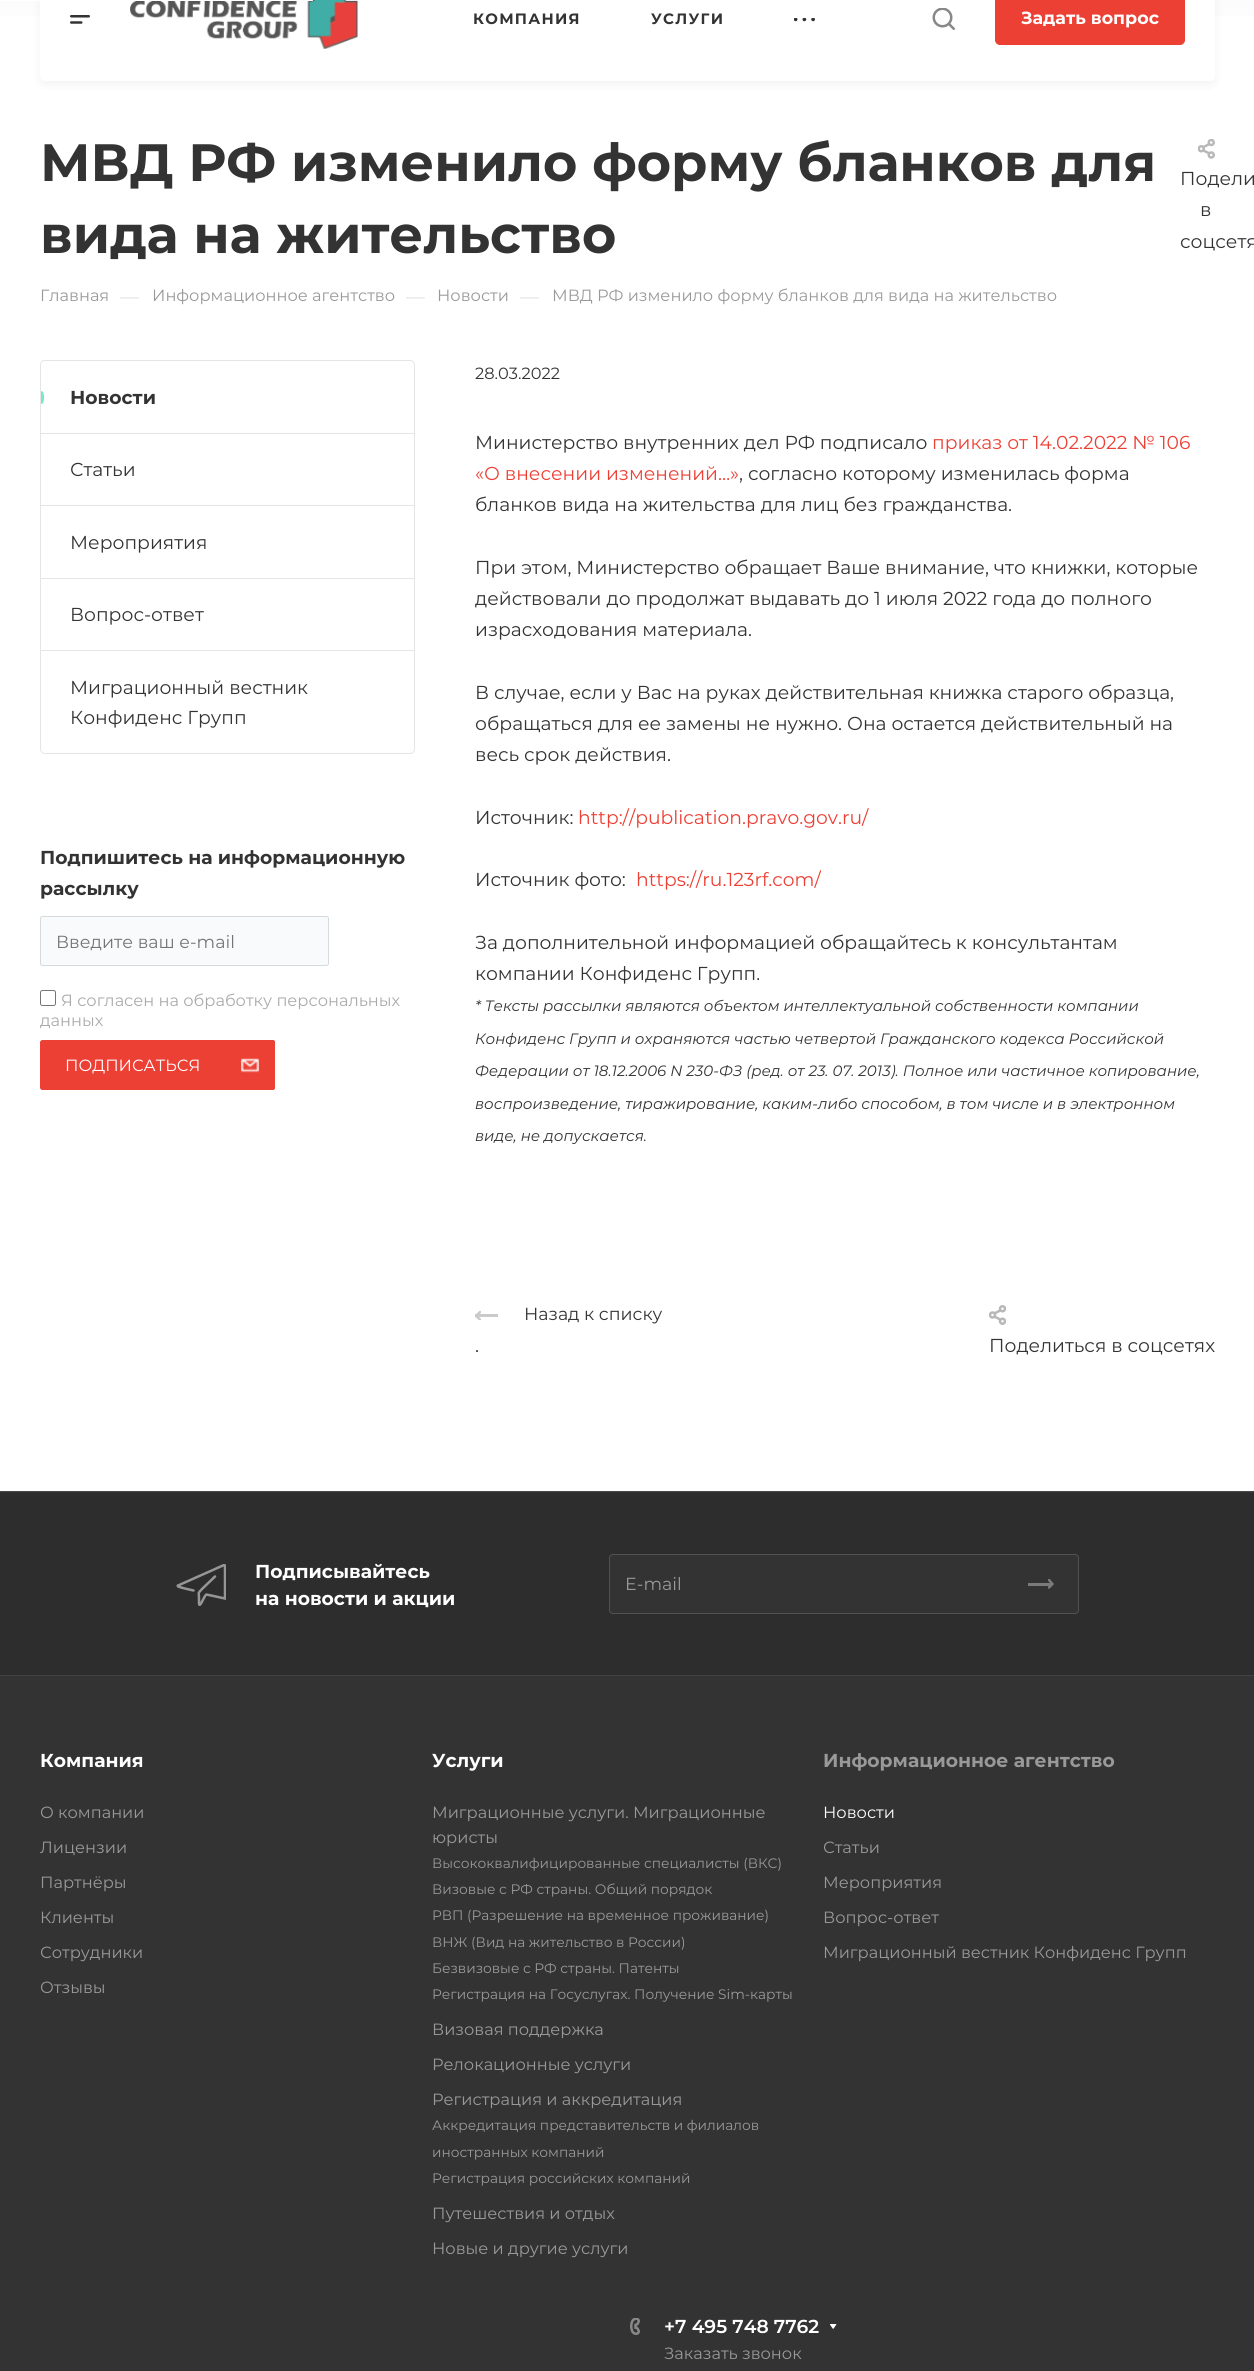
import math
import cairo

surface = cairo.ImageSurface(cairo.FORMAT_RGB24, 1254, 2371)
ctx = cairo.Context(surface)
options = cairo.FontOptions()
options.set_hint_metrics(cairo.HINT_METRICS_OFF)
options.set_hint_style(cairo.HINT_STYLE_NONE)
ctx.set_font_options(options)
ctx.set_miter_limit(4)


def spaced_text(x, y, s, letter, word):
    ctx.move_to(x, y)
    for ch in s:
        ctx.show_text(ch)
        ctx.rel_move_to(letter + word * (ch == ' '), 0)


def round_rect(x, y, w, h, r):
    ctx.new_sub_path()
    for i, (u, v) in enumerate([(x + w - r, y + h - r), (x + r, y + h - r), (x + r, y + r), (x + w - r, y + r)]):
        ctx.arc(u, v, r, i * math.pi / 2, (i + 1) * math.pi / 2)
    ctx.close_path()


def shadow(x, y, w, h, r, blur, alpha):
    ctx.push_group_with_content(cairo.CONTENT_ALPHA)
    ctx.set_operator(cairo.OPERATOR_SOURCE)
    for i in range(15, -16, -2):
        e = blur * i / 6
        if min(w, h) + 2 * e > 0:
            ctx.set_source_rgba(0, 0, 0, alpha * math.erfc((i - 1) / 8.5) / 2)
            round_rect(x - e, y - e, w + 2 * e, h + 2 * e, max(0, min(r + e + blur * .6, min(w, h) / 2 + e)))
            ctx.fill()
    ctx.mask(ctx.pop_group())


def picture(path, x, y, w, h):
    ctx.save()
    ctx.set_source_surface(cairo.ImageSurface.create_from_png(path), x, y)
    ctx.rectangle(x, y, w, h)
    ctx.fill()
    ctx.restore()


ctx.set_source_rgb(1, 1, 1)
ctx.paint()
gradient = cairo.LinearGradient(628, -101, 628, 81)
gradient.add_color_stop_rgba(0, 0.973, 0.973, 0.973, 1)
gradient.add_color_stop_rgba(1, 1, 1, 1, 1)
ctx.set_source(gradient)
ctx.rectangle(0, 0, 1254, 16)
ctx.fill()
ctx.set_source_rgb(0, 0, 0)
shadow(40, -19, 1175, 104, 5, 4.5, 0.05)
ctx.set_source_rgb(1, 1, 1)
round_rect(40, -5, 1175, 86, 5)
ctx.fill()
picture("img2.png", 130, 0, 228, 49)
round_rect(0, 0, 313, 1, 0.5)
ctx.fill()
picture("img1.png", 70, 15, 20, 9)
ctx.select_font_face("Montserrat", cairo.FONT_SLANT_NORMAL, cairo.FONT_WEIGHT_BOLD)
ctx.set_font_size(15)
ctx.set_source_rgb(0.2, 0.2, 0.2)
spaced_text(473, 24, "КОМПАНИЯ", 1.25, 0)
spaced_text(651, 24, "УСЛУГИ", 1.25, 0)
picture("img3.png", 794, 18, 21, 4)
picture("img4.png", 932, 8, 23, 22)
ctx.set_source_rgb(0.929, 0.251, 0.208)
round_rect(995.5, -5.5, 189, 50, 4.5)
ctx.fill_preserve()
ctx.set_line_width(1)
ctx.stroke()
ctx.set_font_size(17.5)
ctx.set_source_rgb(1, 1, 1)
ctx.move_to(1021, 24)
ctx.show_text("Задать вопрос")
ctx.set_font_size(52.5)
ctx.set_source_rgb(0.2, 0.2, 0.2)
ctx.move_to(40, 181)
ctx.show_text("МВД РФ изменило форму бланков для")
ctx.move_to(40, 253)
ctx.show_text("вида на жительство")
picture("img5.png", 1198, 139, 17, 20)
ctx.select_font_face("Montserrat")
ctx.set_font_size(18.75)
ctx.move_to(1180, 185)
ctx.show_text("Подели")
ctx.move_to(1200, 216)
ctx.show_text("в")
ctx.move_to(1180, 248)
ctx.show_text("соцсетя")
ctx.set_font_size(16.25)
ctx.set_source_rgb(0.6, 0.6, 0.6)
ctx.move_to(40, 301)
ctx.show_text("Главная")
ctx.set_font_size(18.75)
ctx.set_source_rgb(0.867, 0.867, 0.867)
ctx.move_to(120, 303)
ctx.show_text("—")
ctx.set_font_size(16.25)
ctx.set_source_rgb(0.6, 0.6, 0.6)
ctx.move_to(152, 301)
ctx.show_text("Информационное агентство")
ctx.set_font_size(18.75)
ctx.set_source_rgb(0.867, 0.867, 0.867)
ctx.move_to(406, 303)
ctx.show_text("—")
ctx.set_font_size(16.25)
ctx.set_source_rgb(0.6, 0.6, 0.6)
ctx.move_to(437, 301)
ctx.show_text("Новости")
ctx.set_font_size(18.75)
ctx.set_source_rgb(0.867, 0.867, 0.867)
ctx.move_to(520, 303)
ctx.show_text("—")
ctx.set_font_size(16.25)
ctx.set_source_rgb(0.6, 0.6, 0.6)
ctx.move_to(552, 301)
ctx.show_text("МВД РФ изменило форму бланков для вида на жительство")
round_rect(40.5, 360.5, 374, 393, 4.5)
ctx.set_source_rgb(0.898, 0.898, 0.898)
ctx.stroke()
ctx.set_source_rgb(0.463, 0.91, 0.804)
ctx.new_path()
ctx.move_to(41, 404)
ctx.line_to(41, 391)
ctx.line_to(42.5, 391.5)
ctx.curve_to(44.5, 392.5, 44.5, 402.5, 42.5, 403.5)
ctx.close_path()
ctx.fill()
ctx.select_font_face("Montserrat", cairo.FONT_SLANT_NORMAL, cairo.FONT_WEIGHT_BOLD)
ctx.set_font_size(18.75)
ctx.set_source_rgb(0.2, 0.2, 0.2)
ctx.move_to(70, 404)
ctx.show_text("Новости")
ctx.set_source_rgb(0.898, 0.898, 0.898)
ctx.rectangle(41, 433, 373, 1)
ctx.fill()
ctx.select_font_face("Montserrat")
ctx.set_source_rgb(0.2, 0.2, 0.2)
ctx.move_to(70, 476)
ctx.show_text("Статьи")
ctx.set_source_rgb(0.898, 0.898, 0.898)
ctx.rectangle(41, 505, 373, 1)
ctx.fill()
ctx.set_source_rgb(0.2, 0.2, 0.2)
ctx.move_to(70, 549)
ctx.show_text("Мероприятия")
ctx.set_source_rgb(0.898, 0.898, 0.898)
ctx.rectangle(41, 578, 373, 1)
ctx.fill()
ctx.set_source_rgb(0.2, 0.2, 0.2)
ctx.move_to(70, 621)
ctx.show_text("Вопрос-ответ")
ctx.set_source_rgb(0.898, 0.898, 0.898)
ctx.rectangle(41, 650, 373, 1)
ctx.fill()
ctx.set_source_rgb(0.2, 0.2, 0.2)
ctx.move_to(70, 694)
ctx.show_text("Миграционный вестник")
ctx.move_to(70, 724)
ctx.show_text("Конфиденс Групп")
ctx.select_font_face("Montserrat", cairo.FONT_SLANT_NORMAL, cairo.FONT_WEIGHT_BOLD)
ctx.move_to(40, 864)
ctx.show_text("Подпишитесь на информационную")
ctx.move_to(40, 895)
ctx.show_text("рассылку")
ctx.set_source_rgb(0.973, 0.98, 0.988)
round_rect(40.5, 916.5, 288, 49, 2)
ctx.fill_preserve()
ctx.set_source_rgb(0.835, 0.855, 0.863)
ctx.stroke()
ctx.select_font_face("Montserrat")
ctx.set_font_size(17.5)
ctx.set_source_rgb(0.459, 0.459, 0.459)
ctx.move_to(56, 948)
ctx.show_text("Введите ваш e-mail")
round_rect(40.5, 990.5, 15, 15, 2)
ctx.set_source_rgb(0.463, 0.463, 0.463)
ctx.stroke()
ctx.set_font_size(16.25)
ctx.set_source_rgb(0.667, 0.667, 0.667)
ctx.move_to(61, 1006)
ctx.show_text("Я согласен на обработку персональных")
ctx.move_to(40, 1026)
ctx.show_text("данных")
ctx.set_source_rgb(0.929, 0.251, 0.208)
round_rect(40, 1040, 235, 50, 2.5)
ctx.fill()
ctx.set_source_rgb(1, 1, 1)
ctx.move_to(65, 1071)
ctx.show_text("ПОДПИСАТЬСЯ")
ctx.set_source_rgb(0.929, 0.251, 0.208)
ctx.new_path()
ctx.move_to(225, 1040)
ctx.line_to(272.5, 1040)
ctx.curve_to(274, 1040, 275, 1041, 275, 1042.5)
ctx.line_to(275, 1087.5)
ctx.curve_to(275, 1089, 274, 1090, 272.5, 1090)
ctx.line_to(225, 1090)
ctx.close_path()
ctx.fill()
picture("img6.png", 241, 1058, 18, 15)
ctx.set_source_rgb(0.2, 0.2, 0.2)
ctx.move_to(475, 379)
ctx.show_text("28.03.2022")
ctx.set_font_size(18.75)
ctx.move_to(475, 449)
ctx.show_text("Министерство внутренних дел РФ подписало")
ctx.set_source_rgb(0.929, 0.251, 0.208)
ctx.move_to(932, 449)
ctx.show_text("приказ от 14.02.2022 № 106")
ctx.move_to(475, 480)
ctx.show_text("«О внесении изменений…»")
ctx.set_source_rgb(0.2, 0.2, 0.2)
ctx.move_to(739, 480)
ctx.show_text(", согласно которому изменилась форма")
ctx.move_to(475, 511)
ctx.show_text("бланков вида на жительства для лиц без гражданства.")
ctx.move_to(475, 574)
ctx.show_text("При этом, Министерство обращает Ваше внимание, что книжки, которые")
ctx.move_to(475, 605)
ctx.show_text("действовали до продолжат выдавать до 1 июля 2022 года до полного")
ctx.move_to(475, 636)
ctx.show_text("израсходования материала.")
ctx.move_to(475, 699)
ctx.show_text("В случае, если у Вас на руках действительная книжка старого образца,")
ctx.move_to(475, 730)
ctx.show_text("обращаться для ее замены не нужно. Она остается действительный на")
ctx.move_to(475, 761)
ctx.show_text("весь срок действия.")
ctx.move_to(475, 824)
ctx.show_text("Источник:")
ctx.set_source_rgb(0.929, 0.251, 0.208)
ctx.move_to(578, 824)
ctx.show_text("http://publication.pravo.gov.ru/")
ctx.set_source_rgb(0.2, 0.2, 0.2)
ctx.move_to(475, 886)
ctx.show_text("Источник фото:")
ctx.set_source_rgb(0.929, 0.251, 0.208)
ctx.move_to(636, 886)
ctx.show_text("https://ru.123rf.com/")
ctx.set_source_rgb(0.2, 0.2, 0.2)
ctx.move_to(475, 949)
ctx.show_text("За дополнительной информацией обращайтесь к консультантам")
ctx.move_to(475, 980)
ctx.show_text("компании Конфиденс Групп.")
ctx.select_font_face("Montserrat", cairo.FONT_SLANT_ITALIC)
ctx.set_font_size(15)
ctx.move_to(475, 1011)
ctx.show_text("* Тексты рассылки являются объектом интеллектуальной собственности компании")
ctx.move_to(475, 1044)
ctx.show_text("Конфиденс Групп и охраняются частью четвертой Гражданского кодекса Российской")
ctx.move_to(475, 1076)
ctx.show_text("Федерации от 18.12.2006 N 230-ФЗ (ред. от 23. 07. 2013). Полное или частичное копирование,")
ctx.move_to(475, 1109)
ctx.show_text("воспроизведение, тиражирование, каким-либо способом, в том числе и в электронном")
ctx.move_to(475, 1141)
ctx.show_text("виде, не допускается.")
ctx.select_font_face("Montserrat")
ctx.set_font_size(18.75)
ctx.move_to(475, 1352)
ctx.show_text(".")
ctx.save()
ctx.rectangle(475, 1310, 6, 10)
ctx.clip()
ctx.new_path()
ctx.move_to(480, 1319.5)
ctx.line_to(476, 1316)
ctx.line_to(480, 1312)
ctx.set_source_rgb(0.792, 0.792, 0.792)
ctx.set_line_width(2.5)
ctx.set_line_cap(cairo.LINE_CAP_ROUND)
ctx.set_line_join(cairo.LINE_JOIN_ROUND)
ctx.stroke()
ctx.restore()
ctx.set_source_rgb(0.792, 0.792, 0.792)
ctx.rectangle(475, 1314, 23, 3)
ctx.fill()
ctx.set_font_size(17.5)
ctx.set_source_rgb(0.2, 0.2, 0.2)
ctx.move_to(524, 1320)
ctx.show_text("Назад к списку")
picture("img7.png", 989, 1305, 17, 20)
ctx.set_font_size(18.75)
ctx.move_to(989, 1352)
ctx.show_text("Поделиться в соцсетях")
ctx.rectangle(0, 1492, 1254, 879)
ctx.fill()
ctx.set_source_rgb(0.278, 0.278, 0.278)
ctx.rectangle(0, 1491, 1254, 1)
ctx.fill()
ctx.set_source_rgb(0.176, 0.176, 0.176)
ctx.rectangle(0, 1493, 1254, 182)
ctx.fill()
ctx.set_source_rgb(0.259, 0.259, 0.259)
ctx.rectangle(0, 1675, 1254, 1)
ctx.fill()
ctx.save()
ctx.rectangle(176, 1564, 50, 42)
ctx.clip()
ctx.new_path()
ctx.move_to(193.5, 1590.5)
ctx.curve_to(191, 1590, 177.5, 1587, 177.5, 1586)
ctx.line_to(178, 1585.5)
ctx.line_to(224, 1565)
ctx.line_to(225, 1565.5)
ctx.line_to(225, 1598.5)
ctx.line_to(206.5, 1594.5)
ctx.curve_to(204.5, 1594.5, 199, 1611, 199, 1602.5)
ctx.line_to(199, 1598.5)
ctx.curve_to(199, 1592, 197.5, 1594, 201.5, 1589.5)
ctx.line_to(215, 1576.5)
ctx.set_source_rgb(0.588, 0.588, 0.588)
ctx.set_line_width(2.5)
ctx.set_line_cap(cairo.LINE_CAP_ROUND)
ctx.stroke()
ctx.restore()
ctx.select_font_face("Montserrat", cairo.FONT_SLANT_NORMAL, cairo.FONT_WEIGHT_BOLD)
ctx.set_source_rgb(1, 1, 1)
ctx.move_to(255, 1578)
ctx.show_text("Подписывайтесь")
ctx.move_to(255, 1605)
ctx.show_text("на новости и акции")
ctx.set_source_rgb(0.2, 0.2, 0.2)
round_rect(609.5, 1554.5, 469, 59, 3.5)
ctx.fill_preserve()
ctx.set_source_rgb(0.322, 0.322, 0.322)
ctx.stroke()
ctx.select_font_face("Montserrat")
ctx.set_font_size(17.5)
ctx.set_source_rgb(0.6, 0.6, 0.6)
ctx.move_to(625, 1590)
ctx.show_text("E-mail")
ctx.save()
ctx.rectangle(1048, 1579, 6, 10)
ctx.clip()
ctx.new_path()
ctx.move_to(1049, 1580)
ctx.line_to(1052.5, 1584)
ctx.line_to(1049, 1587.5)
ctx.set_source_rgb(0.478, 0.478, 0.478)
ctx.set_line_width(2.5)
ctx.set_line_cap(cairo.LINE_CAP_ROUND)
ctx.set_line_join(cairo.LINE_JOIN_ROUND)
ctx.stroke()
ctx.restore()
ctx.set_source_rgb(0.478, 0.478, 0.478)
ctx.rectangle(1028, 1583, 23, 3)
ctx.fill()
ctx.select_font_face("Montserrat", cairo.FONT_SLANT_NORMAL, cairo.FONT_WEIGHT_BOLD)
ctx.set_font_size(18.75)
ctx.set_source_rgb(1, 1, 1)
ctx.move_to(40, 1767)
ctx.show_text("Компания")
ctx.select_font_face("Montserrat")
ctx.set_font_size(16.25)
ctx.set_source_rgb(0.6, 0.6, 0.6)
ctx.move_to(40, 1818)
ctx.show_text("О компании")
ctx.move_to(40, 1853)
ctx.show_text("Лицензии")
ctx.move_to(40, 1888)
ctx.show_text("Партнёры")
ctx.move_to(40, 1923)
ctx.show_text("Клиенты")
ctx.move_to(40, 1958)
ctx.show_text("Сотрудники")
ctx.move_to(40, 1993)
ctx.show_text("Отзывы")
ctx.select_font_face("Montserrat", cairo.FONT_SLANT_NORMAL, cairo.FONT_WEIGHT_BOLD)
ctx.set_font_size(18.75)
ctx.set_source_rgb(1, 1, 1)
ctx.move_to(432, 1767)
ctx.show_text("Услуги")
ctx.select_font_face("Montserrat")
ctx.set_font_size(16.25)
ctx.set_source_rgb(0.6, 0.6, 0.6)
ctx.move_to(432, 1818)
ctx.show_text("Миграционные услуги. Миграционные")
ctx.move_to(432, 1843)
ctx.show_text("юристы")
ctx.set_font_size(13.75)
ctx.move_to(432, 1868)
ctx.show_text("Высококвалифицированные специалисты (ВКС)")
ctx.move_to(432, 1894)
ctx.show_text("Визовые с РФ страны. Общий порядок")
ctx.move_to(432, 1920)
ctx.show_text("РВП (Разрешение на временное проживание)")
ctx.move_to(432, 1947)
ctx.show_text("ВНЖ (Вид на жительство в России)")
ctx.move_to(432, 1973)
ctx.show_text("Безвизовые с РФ страны. Патенты")
ctx.move_to(432, 1999)
ctx.show_text("Регистрация на Госуслугах. Получение Sim-карты")
ctx.set_font_size(16.25)
ctx.move_to(432, 2035)
ctx.show_text("Визовая поддержка")
ctx.move_to(432, 2070)
ctx.show_text("Релокационные услуги")
ctx.move_to(432, 2105)
ctx.show_text("Регистрация и аккредитация")
ctx.set_font_size(13.75)
ctx.move_to(432, 2130)
ctx.show_text("Аккредитация представительств и филиалов")
ctx.move_to(432, 2157)
ctx.show_text("иностранных компаний")
ctx.move_to(432, 2183)
ctx.show_text("Регистрация российских компаний")
ctx.set_font_size(16.25)
ctx.move_to(432, 2219)
ctx.show_text("Путешествия и отдых")
ctx.move_to(432, 2254)
ctx.show_text("Новые и другие услуги")
ctx.select_font_face("Montserrat", cairo.FONT_SLANT_NORMAL, cairo.FONT_WEIGHT_BOLD)
ctx.set_font_size(18.75)
ctx.move_to(823, 1767)
ctx.show_text("Информационное агентство")
ctx.select_font_face("Montserrat")
ctx.set_font_size(16.25)
ctx.set_source_rgb(1, 1, 1)
ctx.move_to(823, 1818)
ctx.show_text("Новости")
ctx.set_source_rgb(0.6, 0.6, 0.6)
ctx.move_to(823, 1853)
ctx.show_text("Статьи")
ctx.move_to(823, 1888)
ctx.show_text("Мероприятия")
ctx.move_to(823, 1923)
ctx.show_text("Вопрос-ответ")
ctx.move_to(823, 1958)
ctx.show_text("Миграционный вестник Конфиденс Групп")
picture("img8.png", 630, 2318, 10, 17)
ctx.select_font_face("Montserrat SemiBold")
ctx.set_font_size(18.75)
ctx.set_source_rgb(1, 1, 1)
ctx.move_to(664, 2333)
ctx.show_text("+7 495 748 7762")
picture("img9.png", 830, 2324, 7, 5)
ctx.select_font_face("Montserrat")
ctx.set_font_size(16.25)
ctx.set_source_rgb(0.6, 0.6, 0.6)
ctx.move_to(664, 2359)
ctx.show_text("Заказать звонок")
surface.write_to_png("page.png")
